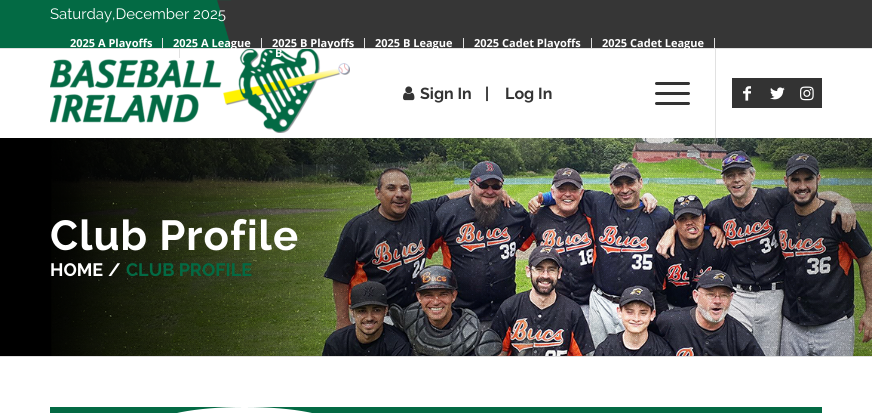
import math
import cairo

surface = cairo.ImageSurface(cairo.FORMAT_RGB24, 872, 413)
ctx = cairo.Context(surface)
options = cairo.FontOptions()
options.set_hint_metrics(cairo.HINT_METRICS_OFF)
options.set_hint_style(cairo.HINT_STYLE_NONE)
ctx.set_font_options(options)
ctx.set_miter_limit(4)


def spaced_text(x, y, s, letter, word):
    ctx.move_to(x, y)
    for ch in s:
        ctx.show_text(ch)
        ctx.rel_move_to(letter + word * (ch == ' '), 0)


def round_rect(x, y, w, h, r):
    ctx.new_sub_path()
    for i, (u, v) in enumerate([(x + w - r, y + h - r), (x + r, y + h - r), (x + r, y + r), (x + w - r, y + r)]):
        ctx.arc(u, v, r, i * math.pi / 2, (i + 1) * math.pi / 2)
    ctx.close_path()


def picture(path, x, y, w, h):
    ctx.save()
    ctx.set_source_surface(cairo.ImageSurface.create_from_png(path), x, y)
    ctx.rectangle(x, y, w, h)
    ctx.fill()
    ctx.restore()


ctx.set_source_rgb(1, 1, 1)
ctx.paint()
picture("img1.png", 0, 0, 872, 48)
ctx.set_source_rgb(0.882, 0.882, 0.882)
ctx.rectangle(715, 48, 1, 90)
ctx.fill()
ctx.rectangle(0, 48, 872, 1)
ctx.fill()
ctx.select_font_face("Raleway")
ctx.set_font_size(15)
ctx.set_source_rgb(1, 1, 1)
ctx.move_to(50, 19)
ctx.show_text("Saturday,December 2025")
ctx.set_source_rgb(0.882, 0.882, 0.882)
ctx.rectangle(162, 38, 1, 10)
ctx.fill()
picture("img2.png", 50, 49, 300, 84)
ctx.select_font_face("Open Sans", cairo.FONT_SLANT_NORMAL, cairo.FONT_WEIGHT_BOLD)
ctx.set_font_size(11)
ctx.set_source_rgb(1, 1, 1)
ctx.move_to(70, 47)
ctx.show_text("2025 A Playoffs")
ctx.set_source_rgb(0.882, 0.882, 0.882)
ctx.rectangle(261, 38, 1, 10)
ctx.fill()
ctx.set_source_rgb(1, 1, 1)
ctx.move_to(173, 47)
ctx.show_text("2025 A League")
ctx.set_source_rgb(0.882, 0.882, 0.882)
ctx.rectangle(364, 38, 1, 10)
ctx.fill()
ctx.set_source_rgb(1, 1, 1)
ctx.move_to(272, 47)
ctx.show_text("2025 B Playoffs")
ctx.set_source_rgb(0.882, 0.882, 0.882)
ctx.rectangle(463, 38, 1, 10)
ctx.fill()
ctx.set_source_rgb(1, 1, 1)
ctx.move_to(375, 47)
ctx.show_text("2025 B League")
ctx.set_source_rgb(0.882, 0.882, 0.882)
ctx.rectangle(591, 38, 1, 10)
ctx.fill()
ctx.set_source_rgb(1, 1, 1)
ctx.move_to(474, 47)
ctx.show_text("2025 Cadet Playoffs")
ctx.set_source_rgb(0.882, 0.882, 0.882)
ctx.rectangle(714, 38, 1, 10)
ctx.fill()
ctx.set_source_rgb(1, 1, 1)
ctx.move_to(602, 47)
ctx.show_text("2025 Cadet League")
ctx.set_source_rgb(0.882, 0.882, 0.882)
ctx.rectangle(179, 48, 1, 10)
ctx.fill()
ctx.set_source_rgb(1, 1, 1)
ctx.move_to(275, 57)
ctx.show_text("B")
picture("img3.png", 403, 86, 12, 15)
ctx.select_font_face("Raleway", cairo.FONT_SLANT_NORMAL, cairo.FONT_WEIGHT_BOLD)
ctx.set_font_size(16)
ctx.set_source_rgb(0.2, 0.2, 0.2)
ctx.move_to(420, 99)
ctx.show_text("Sign In")
ctx.move_to(485, 99)
ctx.show_text("|")
ctx.move_to(505, 99)
ctx.show_text("Log In")
round_rect(655, 92, 35, 3, 1.5)
ctx.fill()
round_rect(655, 82, 35, 3, 1.5)
ctx.fill()
round_rect(655, 102, 35, 3, 1.5)
ctx.fill()
ctx.rectangle(732, 78, 90, 30)
ctx.fill()
picture("img4.png", 743, 86, 8, 15)
picture("img5.png", 770, 87, 15, 13)
picture("img6.png", 800, 86, 14, 15)
picture("img7.png", 0, 138, 872, 218)
ctx.set_font_size(42)
ctx.set_source_rgb(1, 1, 1)
spaced_text(50, 250, "Club Profile", 1, 0)
ctx.set_font_size(18)
ctx.move_to(50, 276)
ctx.show_text("HOME")
ctx.move_to(108, 276)
ctx.show_text("/")
ctx.set_source_rgb(0.012, 0.416, 0.267)
ctx.move_to(126, 276)
ctx.show_text("CLUB PROFILE")
ctx.set_source_rgb(0.882, 0.882, 0.882)
ctx.rectangle(0, 356, 872, 1)
ctx.fill()
ctx.set_source_rgb(0.012, 0.416, 0.267)
ctx.rectangle(50, 407, 772, 6)
ctx.fill()
ctx.set_source_rgb(1, 1, 1)
ctx.new_path()
ctx.move_to(244.5, 407)
ctx.curve_to(294.5, 407, 335, 415, 335, 425)
ctx.curve_to(335, 435, 294.5, 443, 244.5, 443)
ctx.curve_to(194.5, 443, 154, 435, 154, 425)
ctx.curve_to(154, 415, 194.5, 407, 244.5, 407)
ctx.close_path()
ctx.fill()
surface.write_to_png("page.png")
